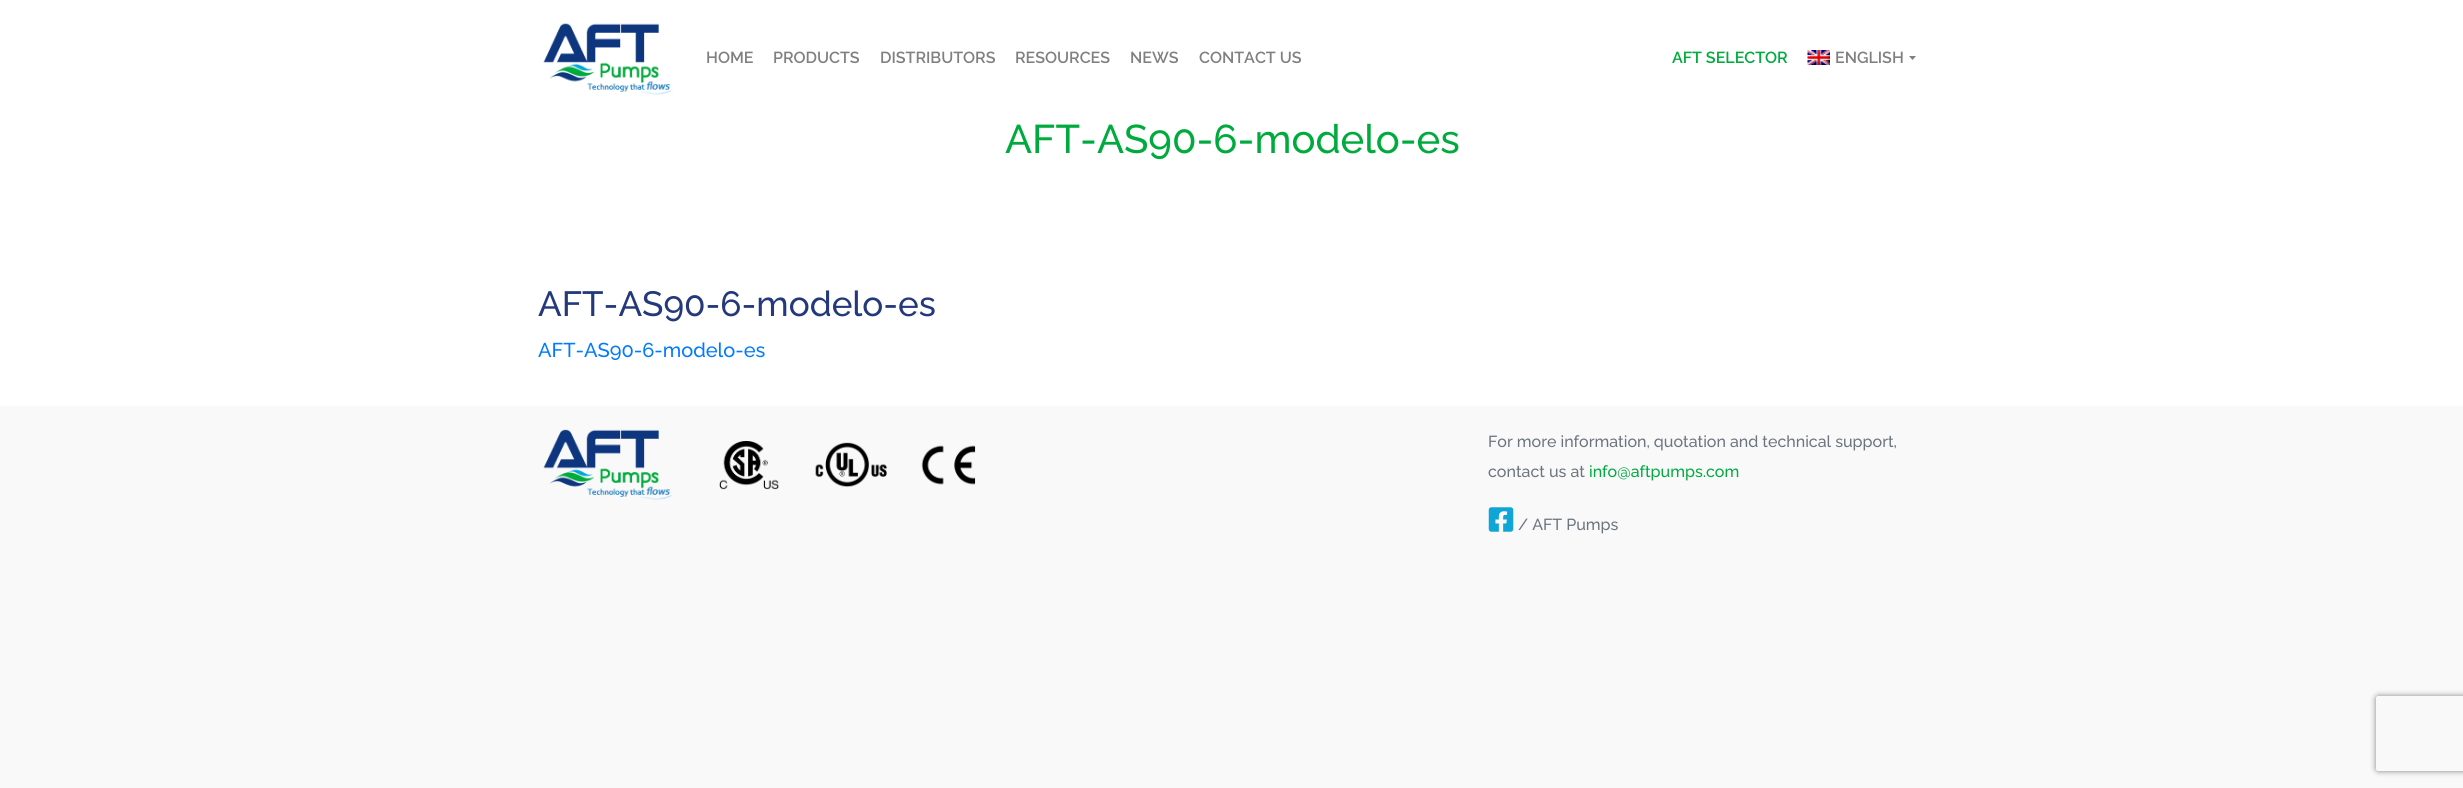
import math
import cairo

surface = cairo.ImageSurface(cairo.FORMAT_RGB24, 2463, 788)
ctx = cairo.Context(surface)
options = cairo.FontOptions()
options.set_hint_metrics(cairo.HINT_METRICS_OFF)
options.set_hint_style(cairo.HINT_STYLE_NONE)
ctx.set_font_options(options)
ctx.set_miter_limit(4)


def round_rect(x, y, w, h, r):
    ctx.new_sub_path()
    for i, (u, v) in enumerate([(x + w - r, y + h - r), (x + r, y + h - r), (x + r, y + r), (x + w - r, y + r)]):
        ctx.arc(u, v, r, i * math.pi / 2, (i + 1) * math.pi / 2)
    ctx.close_path()


def shadow(x, y, w, h, r, blur, alpha):
    ctx.push_group_with_content(cairo.CONTENT_ALPHA)
    ctx.set_operator(cairo.OPERATOR_SOURCE)
    for i in range(15, -16, -2):
        e = blur * i / 6
        if min(w, h) + 2 * e > 0:
            ctx.set_source_rgba(0, 0, 0, alpha * math.erfc((i - 1) / 8.5) / 2)
            round_rect(x - e, y - e, w + 2 * e, h + 2 * e, max(0, min(r + e + blur * .6, min(w, h) / 2 + e)))
            ctx.fill()
    ctx.mask(ctx.pop_group())


def picture(path, x, y, w, h):
    ctx.save()
    ctx.set_source_surface(cairo.ImageSurface.create_from_png(path), x, y)
    ctx.rectangle(x, y, w, h)
    ctx.fill()
    ctx.restore()


ctx.set_source_rgb(0.973, 0.976, 0.98)
ctx.paint()
ctx.set_source_rgb(1, 1, 1)
ctx.rectangle(0, 0, 2463, 406)
ctx.fill()
picture("img1.png", 543, 23, 130, 72)
ctx.select_font_face("Raleway SemiBold")
ctx.set_font_size(16)
ctx.set_source_rgb(0.502, 0.502, 0.502)
ctx.move_to(706, 63)
ctx.show_text("HOME")
ctx.move_to(773, 63)
ctx.show_text("PRODUCTS")
ctx.move_to(880, 63)
ctx.show_text("DISTRIBUTORS")
ctx.move_to(1015, 63)
ctx.show_text("RESOURCES")
ctx.move_to(1130, 63)
ctx.show_text("NEWS")
ctx.move_to(1199, 63)
ctx.show_text("CONTACT US")
ctx.set_source_rgb(0, 0.671, 0.239)
ctx.move_to(1672, 63)
ctx.show_text("AFT SELECTOR")
picture("img2.png", 1807, 50, 23, 15)
ctx.set_source_rgb(0.502, 0.502, 0.502)
ctx.move_to(1835, 63)
ctx.show_text("ENGLISH")
ctx.new_path()
ctx.move_to(1909, 56)
ctx.line_to(1916, 56)
ctx.line_to(1912.5, 60)
ctx.close_path()
ctx.fill()
ctx.select_font_face("Raleway Medium")
ctx.set_font_size(40)
ctx.set_source_rgb(0, 0.671, 0.239)
ctx.move_to(1005, 153)
ctx.show_text("AFT-AS90-6-modelo-es")
ctx.set_font_size(35)
ctx.set_source_rgb(0.141, 0.224, 0.486)
ctx.move_to(538, 316)
ctx.show_text("AFT-AS90-6-modelo-es")
ctx.set_font_size(20)
ctx.set_source_rgb(0, 0.482, 1)
ctx.move_to(538, 357)
ctx.show_text("AFT-AS90-6-modelo-es")
picture("img3.png", 543, 429, 130, 71)
picture("img4.png", 719, 441, 60, 49)
picture("img5.png", 815, 442, 72, 46)
picture("img6.png", 921, 445, 55, 40)
ctx.set_font_size(16)
ctx.set_source_rgb(0.424, 0.459, 0.49)
ctx.move_to(1488, 447)
ctx.show_text("For more information, quotation and technical support,")
ctx.move_to(1488, 477)
ctx.show_text("contact us at")
ctx.set_source_rgb(0, 0.671, 0.239)
ctx.move_to(1589, 477)
ctx.show_text("info@aftpumps.com")
picture("img7.png", 1488, 507, 26, 25)
ctx.set_source_rgb(0.424, 0.459, 0.49)
ctx.move_to(1518, 530)
ctx.show_text("/ AFT Pumps")
ctx.save()
ctx.set_fill_rule(cairo.FILL_RULE_EVEN_ODD)
ctx.new_path()
ctx.move_to(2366, 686)
ctx.line_to(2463, 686)
ctx.line_to(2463, 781)
ctx.line_to(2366, 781)
ctx.close_path()
ctx.move_to(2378.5, 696)
ctx.line_to(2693.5, 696)
ctx.curve_to(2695, 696, 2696, 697, 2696, 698.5)
ctx.line_to(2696, 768.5)
ctx.curve_to(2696, 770, 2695, 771, 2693.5, 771)
ctx.line_to(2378.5, 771)
ctx.curve_to(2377, 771, 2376, 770, 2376, 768.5)
ctx.line_to(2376, 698.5)
ctx.curve_to(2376, 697, 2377, 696, 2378.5, 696)
ctx.close_path()
ctx.clip()
ctx.set_source_rgb(0.502, 0.502, 0.502)
shadow(2376, 696, 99, 75, 2.5, 3, 1)
ctx.restore()
surface.write_to_png("page.png")
